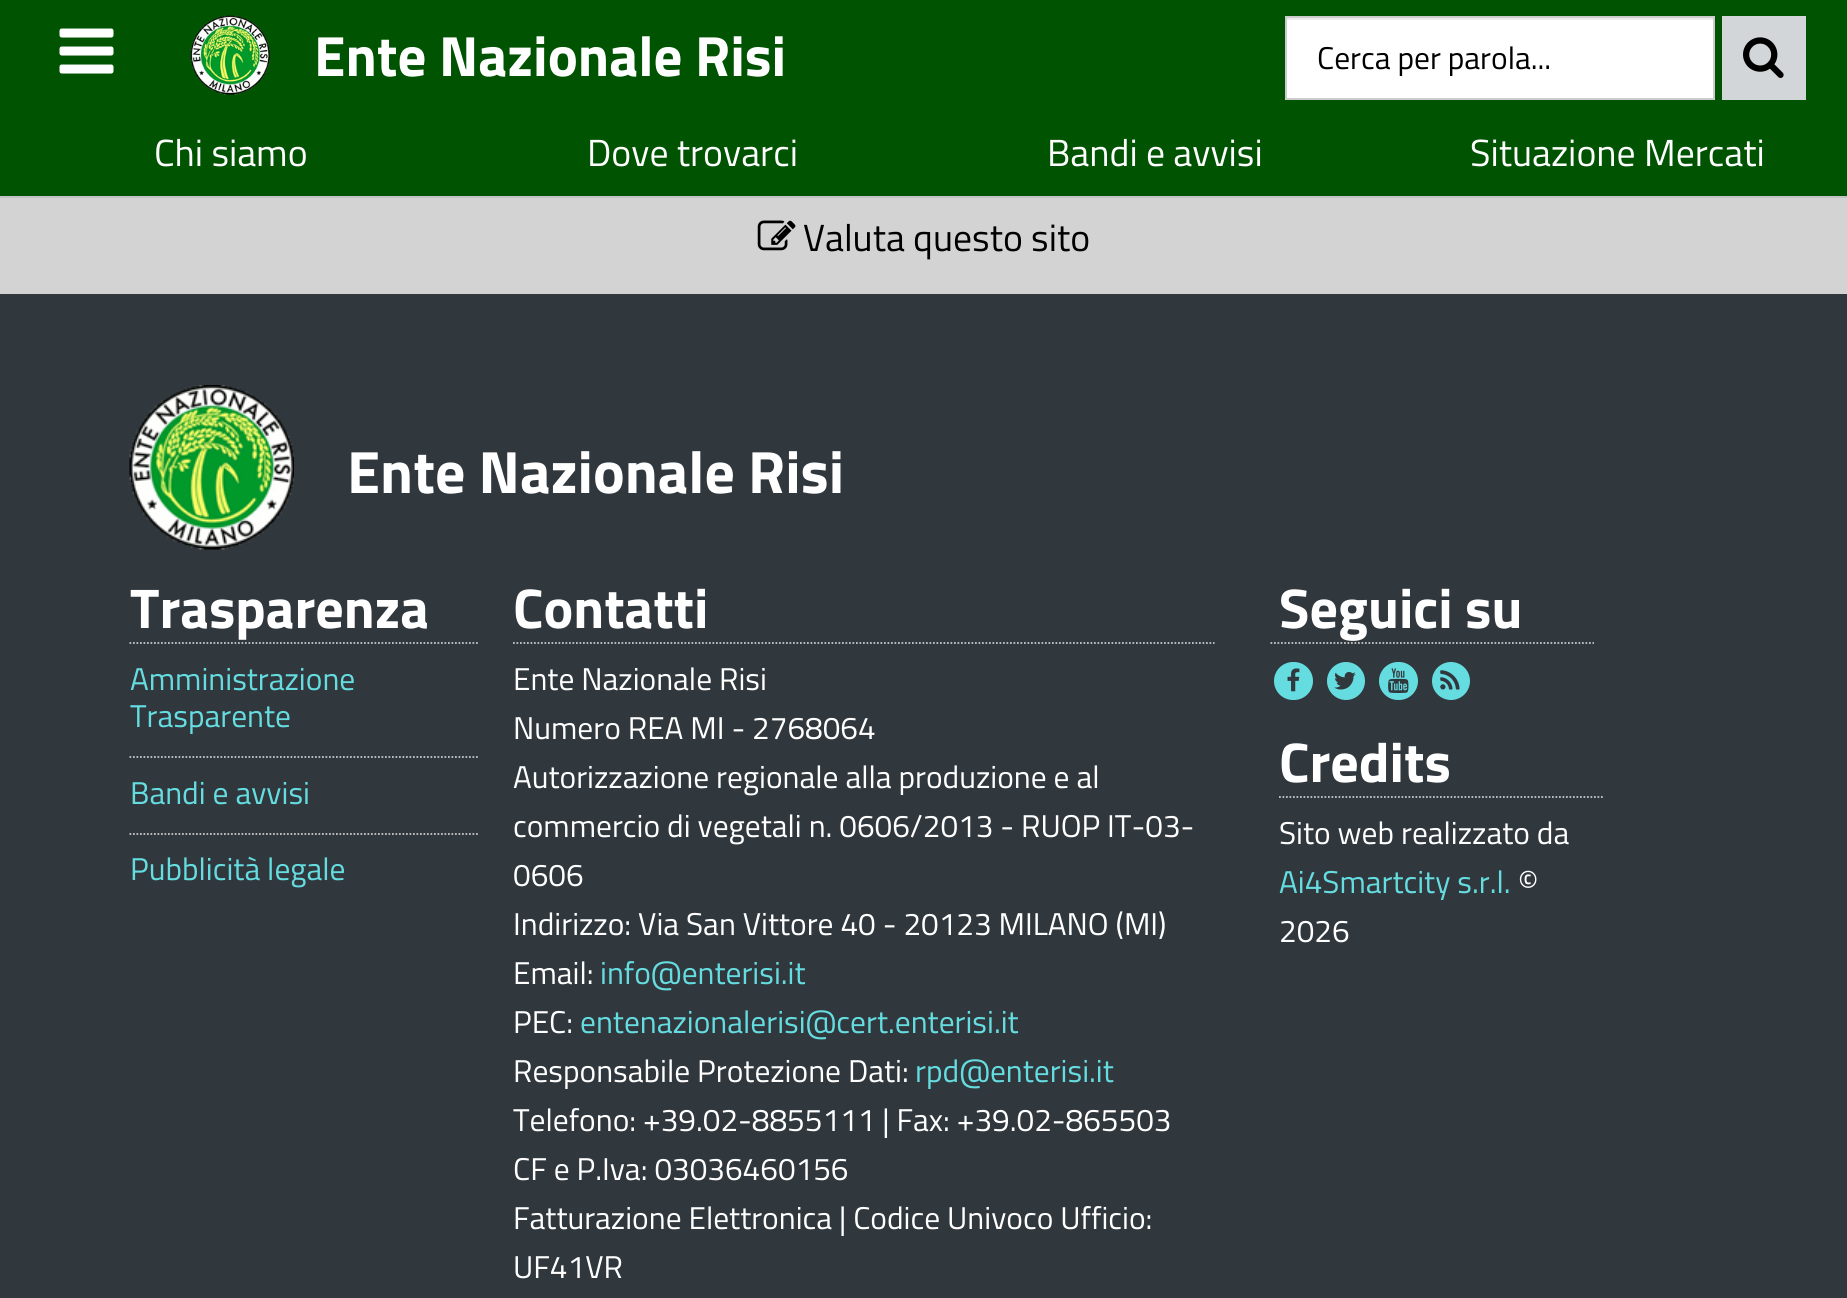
import math
import cairo

surface = cairo.ImageSurface(cairo.FORMAT_RGB24, 1847, 1298)
ctx = cairo.Context(surface)
options = cairo.FontOptions()
options.set_hint_metrics(cairo.HINT_METRICS_OFF)
options.set_hint_style(cairo.HINT_STYLE_NONE)
ctx.set_font_options(options)
ctx.set_miter_limit(4)


def round_rect(x, y, w, h, r):
    ctx.new_sub_path()
    for i, (u, v) in enumerate([(x + w - r, y + h - r), (x + r, y + h - r), (x + r, y + r), (x + w - r, y + r)]):
        ctx.arc(u, v, r, i * math.pi / 2, (i + 1) * math.pi / 2)
    ctx.close_path()


def picture(path, x, y, w, h):
    ctx.save()
    ctx.set_source_surface(cairo.ImageSurface.create_from_png(path), x, y)
    ctx.rectangle(x, y, w, h)
    ctx.fill()
    ctx.restore()


ctx.set_source_rgb(0.827, 0.827, 0.827)
ctx.paint()
ctx.set_source_rgb(0.761, 0.761, 0.761)
ctx.rectangle(0, 196, 1847, 2)
ctx.fill()
ctx.set_source_rgb(0, 0.325, 0.004)
ctx.rectangle(0, 0, 1847, 196)
ctx.fill()
picture("img1.png", 59, 28, 55, 46)
picture("img2.png", 190, 15, 80, 80)
ctx.select_font_face("Titillium Web", cairo.FONT_SLANT_NORMAL, cairo.FONT_WEIGHT_BOLD)
ctx.set_font_size(56.75)
ctx.set_source_rgb(1, 1, 1)
ctx.move_to(314, 76)
ctx.show_text("Ente Nazionale Risi")
ctx.rectangle(1287, 20, 426, 78)
ctx.fill()
ctx.set_source_rgb(0.925, 0.925, 0.925)
ctx.rectangle(1286, 18, 427, 2)
ctx.fill()
ctx.rectangle(1286, 17, 428, 82)
ctx.set_source_rgb(0.8, 0.8, 0.8)
ctx.stroke()
ctx.select_font_face("Titillium Web")
ctx.set_font_size(31.5)
ctx.set_source_rgb(0, 0, 0)
ctx.move_to(1317, 69)
ctx.show_text("Cerca per parola...")
ctx.set_source_rgb(0.827, 0.839, 0.847)
ctx.rectangle(1722, 16, 84, 84)
ctx.fill()
picture("img3.png", 1743, 37, 41, 41)
ctx.set_font_size(37.75)
ctx.set_source_rgb(1, 1, 1)
ctx.move_to(154, 166)
ctx.show_text("Chi siamo")
ctx.move_to(587, 166)
ctx.show_text("Dove trovarci")
ctx.move_to(1047, 166)
ctx.show_text("Bandi e avvisi")
ctx.move_to(1470, 166)
ctx.show_text("Situazione Mercati")
picture("img4.png", 757, 220, 39, 31)
ctx.set_source_rgb(0, 0, 0)
ctx.move_to(803, 251)
ctx.show_text("Valuta questo sito")
ctx.set_source_rgb(0.188, 0.216, 0.239)
ctx.rectangle(0, 294, 1847, 1004)
ctx.fill()
picture("img5.png", 129, 385, 165, 165)
ctx.select_font_face("Titillium Web", cairo.FONT_SLANT_NORMAL, cairo.FONT_WEIGHT_BOLD)
ctx.set_font_size(59.75)
ctx.set_source_rgb(1, 1, 1)
ctx.move_to(347, 493)
ctx.show_text("Ente Nazionale Risi")
ctx.set_font_size(56)
ctx.move_to(130, 628)
ctx.show_text("Trasparenza")
ctx.new_path()
ctx.move_to(129.5, 643)
ctx.line_to(479.5, 643)
ctx.set_source_rgb(0.784, 0.784, 0.784)
ctx.set_line_width(1.8)
ctx.set_dash([1.75, 1.75])
ctx.stroke()
ctx.select_font_face("Titillium Web")
ctx.set_font_size(31.5)
ctx.set_source_rgb(0.396, 0.867, 0.878)
ctx.move_to(130, 690)
ctx.show_text("Amministrazione")
ctx.move_to(130, 727)
ctx.show_text("Trasparente")
ctx.new_path()
ctx.move_to(129.5, 757)
ctx.line_to(479.5, 757)
ctx.set_source_rgb(0.784, 0.784, 0.784)
ctx.stroke()
ctx.set_source_rgb(0.396, 0.867, 0.878)
ctx.move_to(130, 804)
ctx.show_text("Bandi e avvisi")
ctx.new_path()
ctx.move_to(129.5, 834)
ctx.line_to(479.5, 834)
ctx.set_source_rgb(0.784, 0.784, 0.784)
ctx.stroke()
ctx.set_source_rgb(0.396, 0.867, 0.878)
ctx.move_to(130, 880)
ctx.show_text("Pubblicità legale")
ctx.select_font_face("Titillium Web", cairo.FONT_SLANT_NORMAL, cairo.FONT_WEIGHT_BOLD)
ctx.set_font_size(56)
ctx.set_source_rgb(1, 1, 1)
ctx.move_to(513, 628)
ctx.show_text("Contatti")
ctx.new_path()
ctx.move_to(513, 643)
ctx.line_to(1214.5, 643)
ctx.set_source_rgb(0.784, 0.784, 0.784)
ctx.stroke()
ctx.select_font_face("Titillium Web")
ctx.set_font_size(31.5)
ctx.set_source_rgb(1, 1, 1)
ctx.move_to(513, 690)
ctx.show_text("Ente Nazionale Risi")
ctx.move_to(513, 739)
ctx.show_text("Numero REA MI - 2768064")
ctx.move_to(513, 788)
ctx.show_text("Autorizzazione regionale alla produzione e al")
ctx.move_to(513, 837)
ctx.show_text("commercio di vegetali n. 0606/2013 - RUOP IT-03-")
ctx.move_to(513, 886)
ctx.show_text("0606")
ctx.move_to(513, 935)
ctx.show_text("Indirizzo: Via San Vittore 40 - 20123 MILANO (MI)")
ctx.move_to(513, 984)
ctx.show_text("Email:")
ctx.set_source_rgb(0.396, 0.867, 0.878)
ctx.move_to(600, 984)
ctx.show_text("info@enterisi.it")
ctx.set_source_rgb(1, 1, 1)
ctx.move_to(513, 1033)
ctx.show_text("PEC:")
ctx.set_source_rgb(0.396, 0.867, 0.878)
ctx.move_to(580, 1033)
ctx.show_text("entenazionalerisi@cert.enterisi.it")
ctx.set_source_rgb(1, 1, 1)
ctx.move_to(513, 1082)
ctx.show_text("Responsabile Protezione Dati:")
ctx.set_source_rgb(0.396, 0.867, 0.878)
ctx.move_to(915, 1082)
ctx.show_text("rpd@enterisi.it")
ctx.set_source_rgb(1, 1, 1)
ctx.move_to(513, 1131)
ctx.show_text("Telefono: +39.02-8855111 | Fax: +39.02-865503")
ctx.move_to(513, 1180)
ctx.show_text("CF e P.Iva: 03036460156")
ctx.move_to(513, 1229)
ctx.show_text("Fatturazione Elettronica | Codice Univoco Ufficio:")
ctx.move_to(513, 1278)
ctx.show_text("UF41VR")
ctx.select_font_face("Titillium Web", cairo.FONT_SLANT_NORMAL, cairo.FONT_WEIGHT_BOLD)
ctx.set_font_size(56)
ctx.move_to(1279, 628)
ctx.show_text("Seguici su")
ctx.new_path()
ctx.move_to(1270.5, 643)
ctx.line_to(1594, 643)
ctx.set_source_rgb(0.784, 0.784, 0.784)
ctx.stroke()
ctx.set_source_rgb(0.396, 0.867, 0.878)
round_rect(1274, 662, 39, 38, 19)
ctx.fill()
picture("img6.png", 1287, 668, 13, 24)
ctx.arc(1346, 681, 19, 0, 2 * math.pi)
ctx.fill()
picture("img7.png", 1334, 672, 22, 18)
round_rect(1379, 662, 39, 38, 19)
ctx.fill()
picture("img8.png", 1388, 668, 21, 25)
ctx.arc(1451, 681, 19, 0, 2 * math.pi)
ctx.fill()
picture("img9.png", 1440, 670, 20, 20)
ctx.set_source_rgb(1, 1, 1)
ctx.move_to(1279, 782)
ctx.show_text("Credits")
ctx.new_path()
ctx.move_to(1279, 797)
ctx.line_to(1603, 797)
ctx.set_source_rgb(0.784, 0.784, 0.784)
ctx.stroke()
ctx.select_font_face("Titillium Web")
ctx.set_font_size(31.5)
ctx.set_source_rgb(1, 1, 1)
ctx.move_to(1279, 844)
ctx.show_text("Sito web realizzato da")
ctx.set_source_rgb(0.396, 0.867, 0.878)
ctx.move_to(1279, 893)
ctx.show_text("Ai4Smartcity s.r.l.")
ctx.set_source_rgb(1, 1, 1)
ctx.move_to(1518, 893)
ctx.show_text("©")
ctx.move_to(1279, 942)
ctx.show_text("2026")
surface.write_to_png("page.png")
